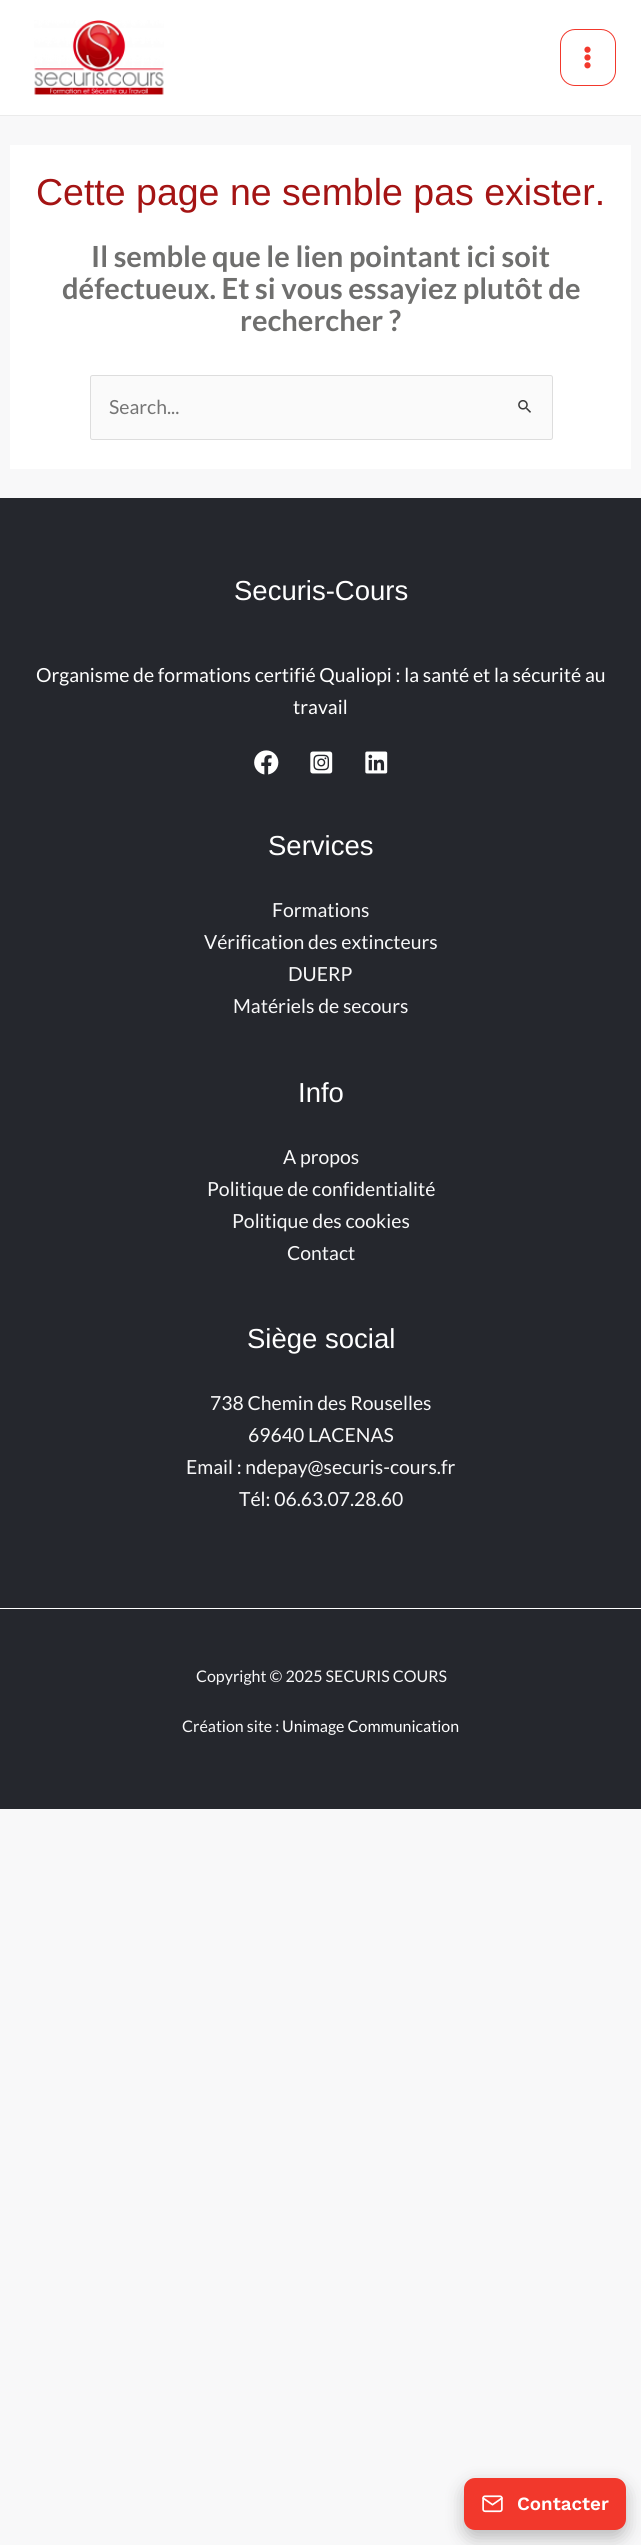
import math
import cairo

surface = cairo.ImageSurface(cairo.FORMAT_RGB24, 641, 2545)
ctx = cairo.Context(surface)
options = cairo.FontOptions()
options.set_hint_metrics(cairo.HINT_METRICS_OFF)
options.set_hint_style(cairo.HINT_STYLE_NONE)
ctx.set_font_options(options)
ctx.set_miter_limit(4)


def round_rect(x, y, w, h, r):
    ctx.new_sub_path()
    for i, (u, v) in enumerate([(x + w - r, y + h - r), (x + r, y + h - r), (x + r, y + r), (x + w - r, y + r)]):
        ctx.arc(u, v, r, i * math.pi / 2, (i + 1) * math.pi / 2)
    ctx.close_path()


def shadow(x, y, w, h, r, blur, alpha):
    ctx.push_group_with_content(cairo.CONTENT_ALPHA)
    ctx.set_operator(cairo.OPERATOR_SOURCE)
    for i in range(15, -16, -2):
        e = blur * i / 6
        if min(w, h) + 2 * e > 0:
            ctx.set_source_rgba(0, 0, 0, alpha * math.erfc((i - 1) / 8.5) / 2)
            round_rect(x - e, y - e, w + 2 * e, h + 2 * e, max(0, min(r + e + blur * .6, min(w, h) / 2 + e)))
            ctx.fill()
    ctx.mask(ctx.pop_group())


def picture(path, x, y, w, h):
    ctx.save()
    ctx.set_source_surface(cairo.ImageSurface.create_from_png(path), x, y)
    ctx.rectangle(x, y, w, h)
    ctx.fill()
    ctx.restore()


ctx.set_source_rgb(0.969, 0.969, 0.973)
ctx.paint()
ctx.set_source_rgb(1, 1, 1)
ctx.rectangle(0, 0, 641, 115)
ctx.fill()
ctx.set_source_rgb(0.918, 0.918, 0.918)
ctx.rectangle(0, 115, 641, 1)
ctx.fill()
picture("img1.png", 34, 20, 130, 75)
round_rect(560.5, 29.5, 55, 56, 14.5)
ctx.set_source_rgb(0.949, 0.22, 0.173)
ctx.set_line_width(1)
ctx.stroke()
picture("img2.png", 584, 46, 7, 23)
ctx.set_source_rgb(1, 1, 1)
ctx.rectangle(10, 145, 621, 324)
ctx.fill()
ctx.select_font_face("Liberation Sans")
ctx.set_font_size(37.5)
ctx.set_source_rgb(0.643, 0.082, 0.082)
ctx.move_to(36, 205)
ctx.show_text("Cette page ne semble pas exister.")
ctx.select_font_face("Lato", cairo.FONT_SLANT_NORMAL, cairo.FONT_WEIGHT_BOLD)
ctx.set_font_size(29.1)
ctx.set_source_rgb(0.435, 0.435, 0.431)
ctx.move_to(91, 267)
ctx.show_text("Il semble que le lien pointant ici soit")
ctx.move_to(62, 299)
ctx.show_text("défectueux. Et si vous essayiez plutôt de")
ctx.move_to(240, 331)
ctx.show_text("rechercher ?")
ctx.set_source_rgb(0.98, 0.98, 0.98)
round_rect(90.5, 375.5, 462, 64, 2)
ctx.fill_preserve()
ctx.set_source_rgb(0.867, 0.867, 0.867)
ctx.stroke()
ctx.select_font_face("Lato")
ctx.set_font_size(19.4)
ctx.set_source_rgb(0.459, 0.459, 0.459)
ctx.move_to(109, 414)
ctx.show_text("Search...")
picture("img3.png", 518, 400, 13, 13)
ctx.set_source_rgb(0.145, 0.153, 0.176)
ctx.rectangle(0, 498, 641, 1311)
ctx.fill()
ctx.select_font_face("Liberation Sans")
ctx.set_font_size(27.5)
ctx.set_source_rgb(1, 1, 1)
ctx.move_to(234, 600)
ctx.show_text("Securis-Cours")
ctx.select_font_face("Lato")
ctx.set_font_size(19.4)
ctx.move_to(36, 682)
ctx.show_text("Organisme de formations certifié Qualiopi : la santé et la sécurité au")
ctx.move_to(293, 714)
ctx.show_text("travail")
picture("img4.png", 254, 750, 25, 25)
picture("img5.png", 310, 751, 23, 23)
picture("img6.png", 365, 751, 23, 23)
ctx.select_font_face("Liberation Sans")
ctx.set_font_size(27.5)
ctx.move_to(268, 855)
ctx.show_text("Services")
ctx.select_font_face("Lato")
ctx.set_font_size(19.4)
ctx.set_source_rgb(0.969, 0.969, 0.973)
ctx.move_to(272, 917)
ctx.show_text("Formations")
ctx.move_to(204, 949)
ctx.show_text("Vérification des extincteurs")
ctx.move_to(288, 981)
ctx.show_text("DUERP")
ctx.move_to(233, 1013)
ctx.show_text("Matériels de secours")
ctx.select_font_face("Liberation Sans")
ctx.set_font_size(27.5)
ctx.set_source_rgb(1, 1, 1)
ctx.move_to(298, 1102)
ctx.show_text("Info")
ctx.select_font_face("Lato")
ctx.set_font_size(19.4)
ctx.set_source_rgb(0.969, 0.969, 0.973)
ctx.move_to(283, 1164)
ctx.show_text("A propos")
ctx.move_to(207, 1196)
ctx.show_text("Politique de confidentialité")
ctx.move_to(232, 1228)
ctx.show_text("Politique des cookies")
ctx.move_to(287, 1260)
ctx.show_text("Contact")
ctx.select_font_face("Liberation Sans")
ctx.set_font_size(27.5)
ctx.set_source_rgb(1, 1, 1)
ctx.move_to(247, 1348)
ctx.show_text("Siège social")
ctx.select_font_face("Lato")
ctx.set_font_size(19.4)
ctx.set_source_rgb(0.969, 0.969, 0.973)
ctx.move_to(210, 1410)
ctx.show_text("738 Chemin des Rouselles")
ctx.move_to(248, 1442)
ctx.show_text("69640 LACENAS")
ctx.move_to(186, 1474)
ctx.show_text("Email : ndepay@securis-cours.fr")
ctx.move_to(239, 1506)
ctx.show_text("Tél: 06.63.07.28.60")
ctx.set_source_rgb(1, 1, 1)
ctx.rectangle(0, 1608, 641, 1)
ctx.fill()
ctx.set_font_size(16)
ctx.set_source_rgb(0.969, 0.969, 0.973)
ctx.move_to(196, 1682)
ctx.show_text("Copyright © 2025 SECURIS COURS")
ctx.move_to(182, 1732)
ctx.show_text("Création site :")
ctx.set_source_rgb(1, 1, 1)
ctx.move_to(282, 1732)
ctx.show_text("Unimage Communication")
ctx.set_source_rgb(0, 0, 0)
shadow(464, 2485, 162, 53, 11, 9, 0.25)
ctx.set_source_rgb(0.949, 0.22, 0.173)
round_rect(464, 2478, 162, 52, 11)
ctx.fill()
picture("img7.png", 482, 2495, 21, 18)
ctx.select_font_face("Work Sans SemiBold")
ctx.set_font_size(18.75)
ctx.set_source_rgb(1, 1, 1)
ctx.move_to(517, 2510)
ctx.show_text("Contacter")
surface.write_to_png("page.png")
